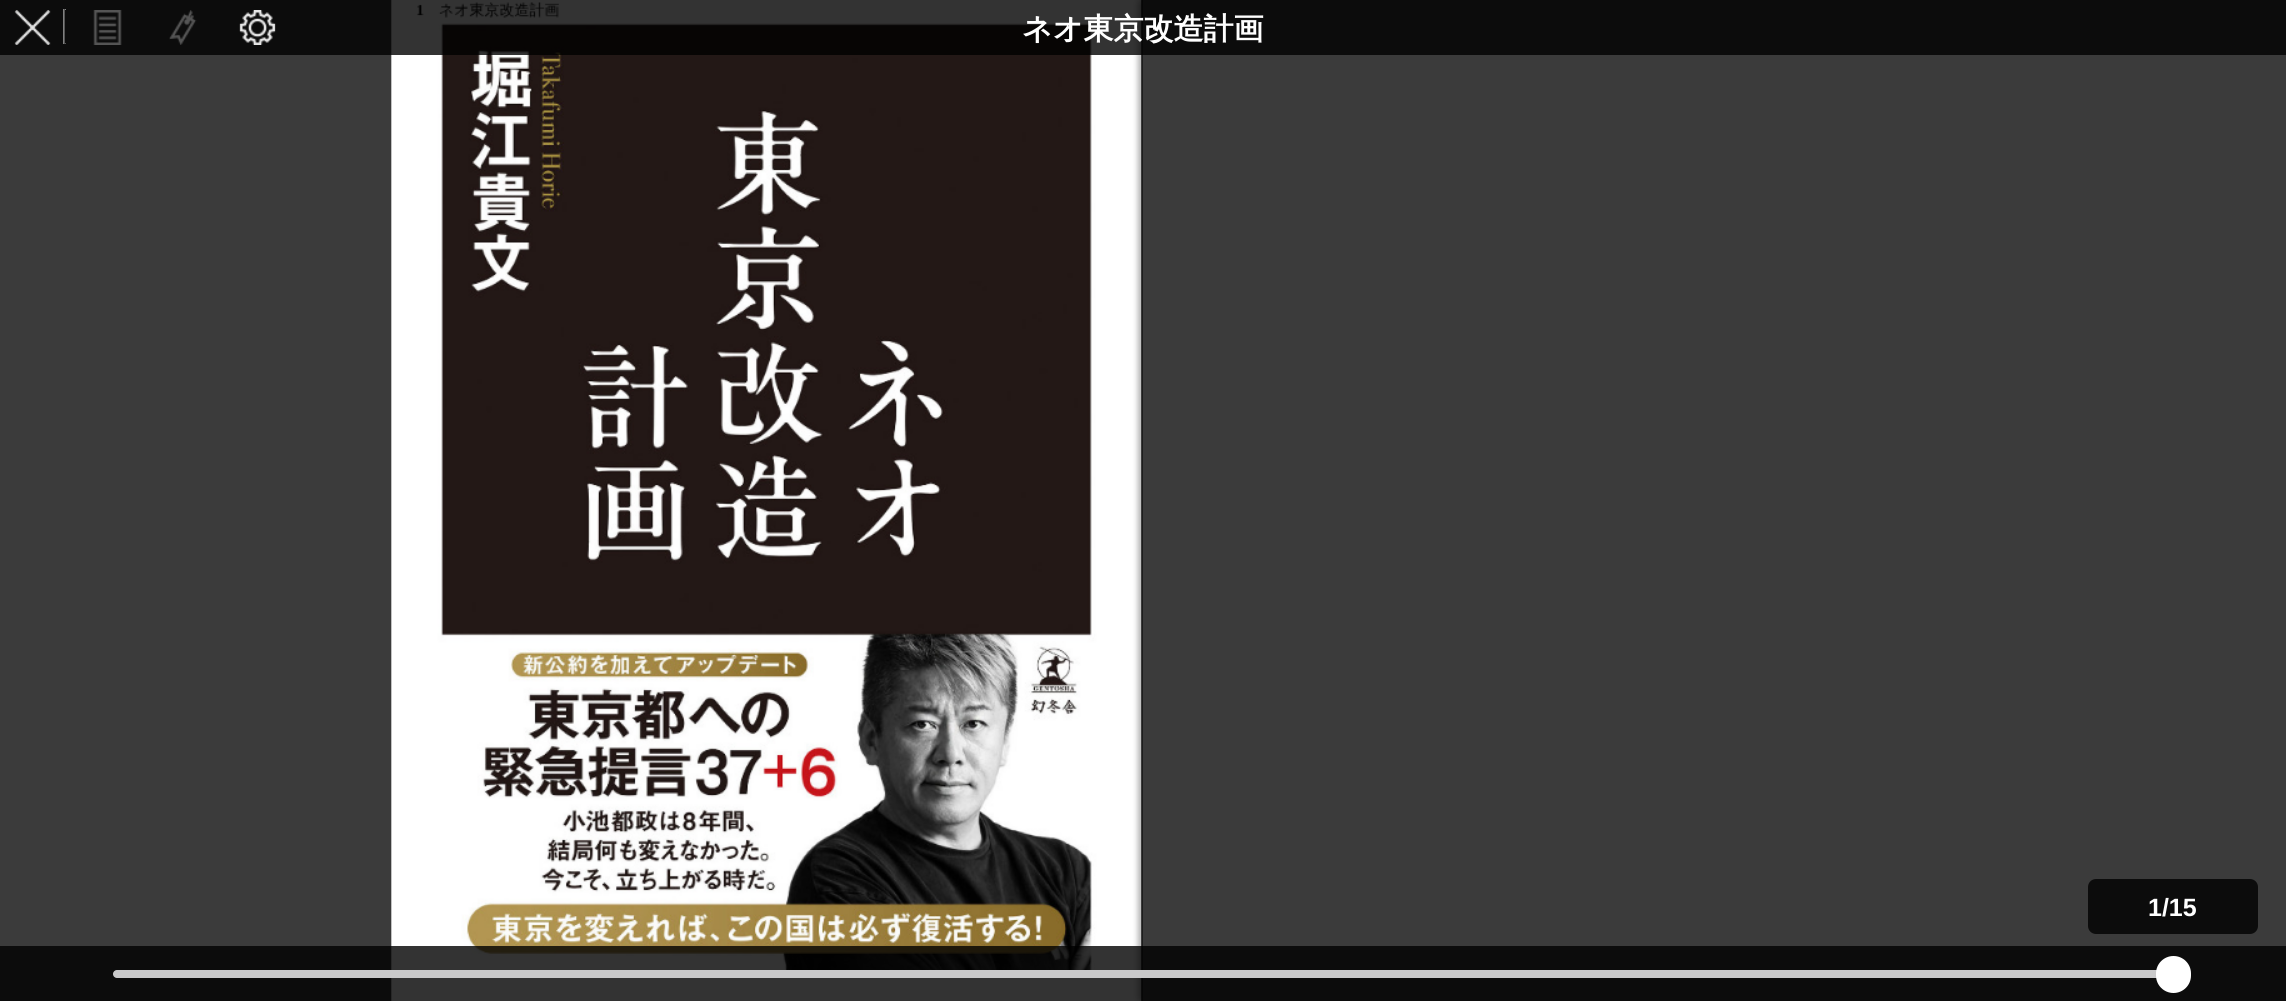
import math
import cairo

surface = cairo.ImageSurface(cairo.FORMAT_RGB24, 2286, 1001)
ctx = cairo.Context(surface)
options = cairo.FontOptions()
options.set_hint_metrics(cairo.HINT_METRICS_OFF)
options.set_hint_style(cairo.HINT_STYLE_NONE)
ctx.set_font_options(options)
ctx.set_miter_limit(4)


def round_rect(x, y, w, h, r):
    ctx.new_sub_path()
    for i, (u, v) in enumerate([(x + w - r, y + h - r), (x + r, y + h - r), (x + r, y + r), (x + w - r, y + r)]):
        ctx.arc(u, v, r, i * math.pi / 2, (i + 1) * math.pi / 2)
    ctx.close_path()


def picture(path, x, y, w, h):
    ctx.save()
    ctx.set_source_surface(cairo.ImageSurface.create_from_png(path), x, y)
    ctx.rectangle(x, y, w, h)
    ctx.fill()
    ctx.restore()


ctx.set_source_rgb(0.231, 0.231, 0.231)
ctx.paint()
picture("img1.png", 391, 0, 752, 1001)
ctx.set_source_rgba(0, 0, 0, 0.8)
ctx.rectangle(0, 0, 2286, 55)
ctx.fill()
picture("img2.png", 14, 10, 37, 35)
ctx.set_source_rgb(0.502, 0.502, 0.502)
ctx.rectangle(63, 9, 3, 1)
ctx.fill()
ctx.set_source_rgb(0.333, 0.333, 0.333)
ctx.rectangle(64, 9, 1, 35)
ctx.fill()
ctx.rectangle(63, 43, 3, 1)
ctx.fill()
ctx.set_source_rgb(0.502, 0.502, 0.502)
ctx.rectangle(63, 9, 1, 35)
ctx.fill()
picture("img3.png", 93, 10, 29, 35)
picture("img4.png", 169, 10, 28, 35)
picture("img5.png", 239, 10, 37, 35)
ctx.select_font_face("WenQuanYi Zen Hei", cairo.FONT_SLANT_NORMAL, cairo.FONT_WEIGHT_BOLD)
ctx.set_font_size(30)
ctx.set_source_rgb(1, 1, 1)
ctx.move_to(1022, 39)
ctx.show_text("ネオ東京改造計画")
ctx.set_source_rgba(0, 0, 0, 0.8)
ctx.rectangle(0, 946, 2286, 55)
ctx.fill()
ctx.set_source_rgb(0.788, 0.788, 0.792)
round_rect(113, 970, 2061, 8, 4)
ctx.fill()
ctx.set_source_rgb(1, 1, 1)
round_rect(2156, 956, 35, 37, 17.5)
ctx.fill()
ctx.set_source_rgb(0.047, 0.047, 0.047)
round_rect(2088, 879, 170, 55, 8)
ctx.fill()
ctx.select_font_face("Liberation Sans", cairo.FONT_SLANT_NORMAL, cairo.FONT_WEIGHT_BOLD)
ctx.set_font_size(25)
ctx.set_source_rgb(1, 1, 1)
ctx.move_to(2148, 916)
ctx.show_text("1/15")
surface.write_to_png("page.png")
